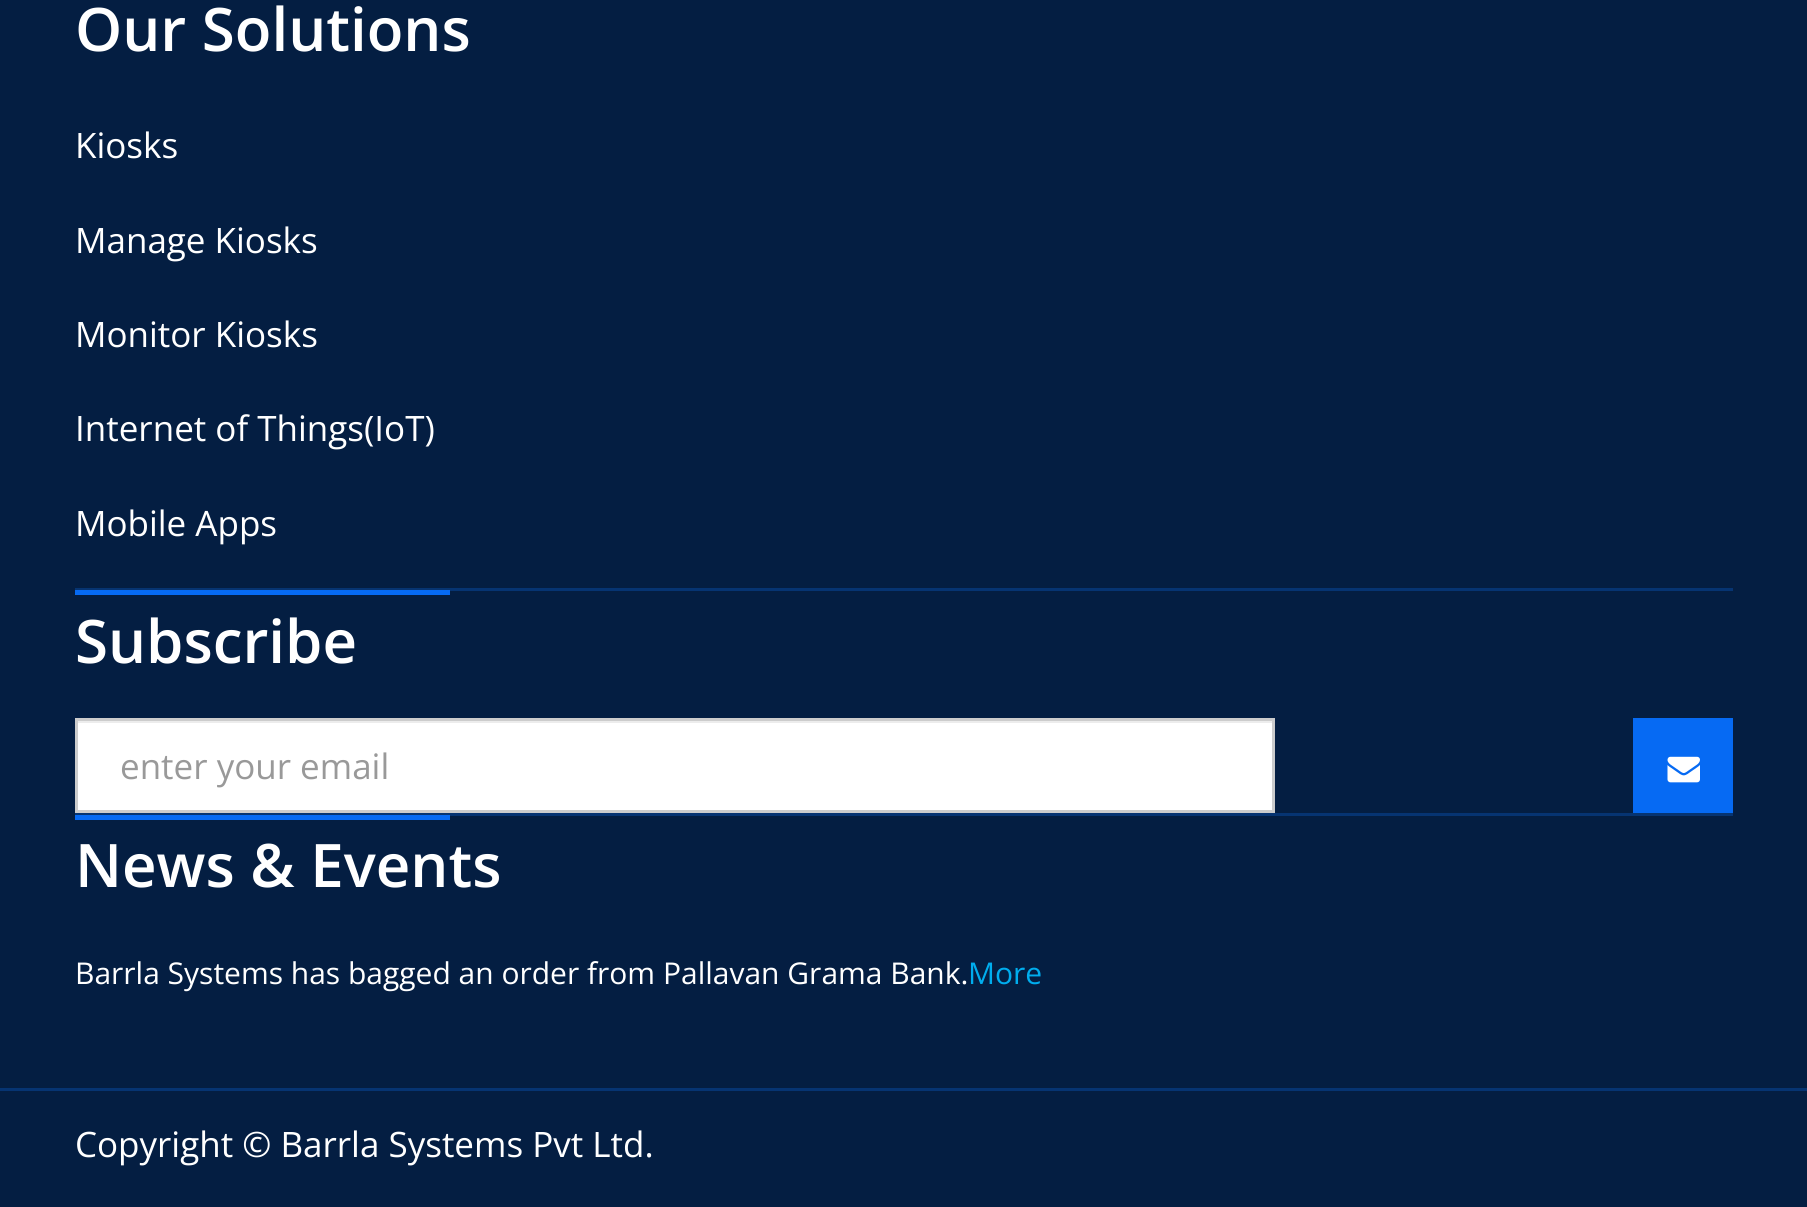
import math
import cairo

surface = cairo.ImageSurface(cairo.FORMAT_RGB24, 1807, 1207)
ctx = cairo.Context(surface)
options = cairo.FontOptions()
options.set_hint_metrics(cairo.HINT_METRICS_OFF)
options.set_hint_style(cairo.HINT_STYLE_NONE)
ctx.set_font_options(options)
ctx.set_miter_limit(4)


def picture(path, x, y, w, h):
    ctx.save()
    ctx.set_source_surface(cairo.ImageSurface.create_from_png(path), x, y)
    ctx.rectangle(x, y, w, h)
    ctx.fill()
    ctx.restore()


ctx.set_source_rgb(0.016, 0.118, 0.259)
ctx.paint()
ctx.select_font_face("Open Sans SemiBold")
ctx.set_font_size(60)
ctx.set_source_rgb(1, 1, 1)
ctx.move_to(75, 51)
ctx.show_text("Our Solutions")
ctx.select_font_face("Open Sans")
ctx.set_font_size(35)
ctx.move_to(75, 158)
ctx.show_text("Kiosks")
ctx.move_to(75, 253)
ctx.show_text("Manage Kiosks")
ctx.move_to(75, 347)
ctx.show_text("Monitor Kiosks")
ctx.move_to(75, 441)
ctx.show_text("Internet of Things(IoT)")
ctx.move_to(75, 536)
ctx.show_text("Mobile Apps")
ctx.set_source_rgb(0.027, 0.204, 0.447)
ctx.rectangle(75, 588, 1658, 3)
ctx.fill()
ctx.set_source_rgb(0.024, 0.416, 0.953)
ctx.rectangle(75, 590, 375, 5)
ctx.fill()
ctx.select_font_face("Open Sans SemiBold")
ctx.set_font_size(60)
ctx.set_source_rgb(1, 1, 1)
ctx.move_to(75, 663)
ctx.show_text("Subscribe")
ctx.rectangle(78, 723, 1194, 87)
ctx.fill()
ctx.set_source_rgb(0.925, 0.925, 0.925)
ctx.rectangle(78, 721, 1195, 2)
ctx.fill()
ctx.rectangle(76.5, 719.5, 1197, 92)
ctx.set_source_rgb(0.8, 0.8, 0.8)
ctx.set_line_width(3)
ctx.stroke()
ctx.select_font_face("Open Sans")
ctx.set_font_size(35)
ctx.set_source_rgb(0.6, 0.6, 0.6)
ctx.move_to(120, 779)
ctx.show_text("enter your email")
ctx.set_source_rgb(0.024, 0.416, 0.953)
ctx.rectangle(1633, 718, 100, 95)
ctx.fill()
picture("img1.png", 1667, 756, 33, 27)
ctx.set_source_rgb(0.027, 0.204, 0.447)
ctx.rectangle(75, 813, 1658, 3)
ctx.fill()
ctx.set_source_rgb(0.024, 0.416, 0.953)
ctx.rectangle(75, 815, 375, 5)
ctx.fill()
ctx.select_font_face("Open Sans SemiBold")
ctx.set_font_size(60)
ctx.set_source_rgb(1, 1, 1)
ctx.move_to(75, 887)
ctx.show_text("News & Events")
ctx.select_font_face("Open Sans")
ctx.set_font_size(30)
ctx.move_to(75, 984)
ctx.show_text("Barrla Systems has bagged an order from Pallavan Grama Bank.")
ctx.set_source_rgb(0, 0.678, 0.933)
ctx.move_to(968, 984)
ctx.show_text("More")
ctx.set_source_rgb(0.027, 0.204, 0.447)
ctx.rectangle(0, 1088, 1807, 3)
ctx.fill()
ctx.set_font_size(35)
ctx.set_source_rgb(1, 1, 1)
ctx.move_to(75, 1157)
ctx.show_text("Copyright © Barrla Systems Pvt Ltd.")
surface.write_to_png("page.png")
